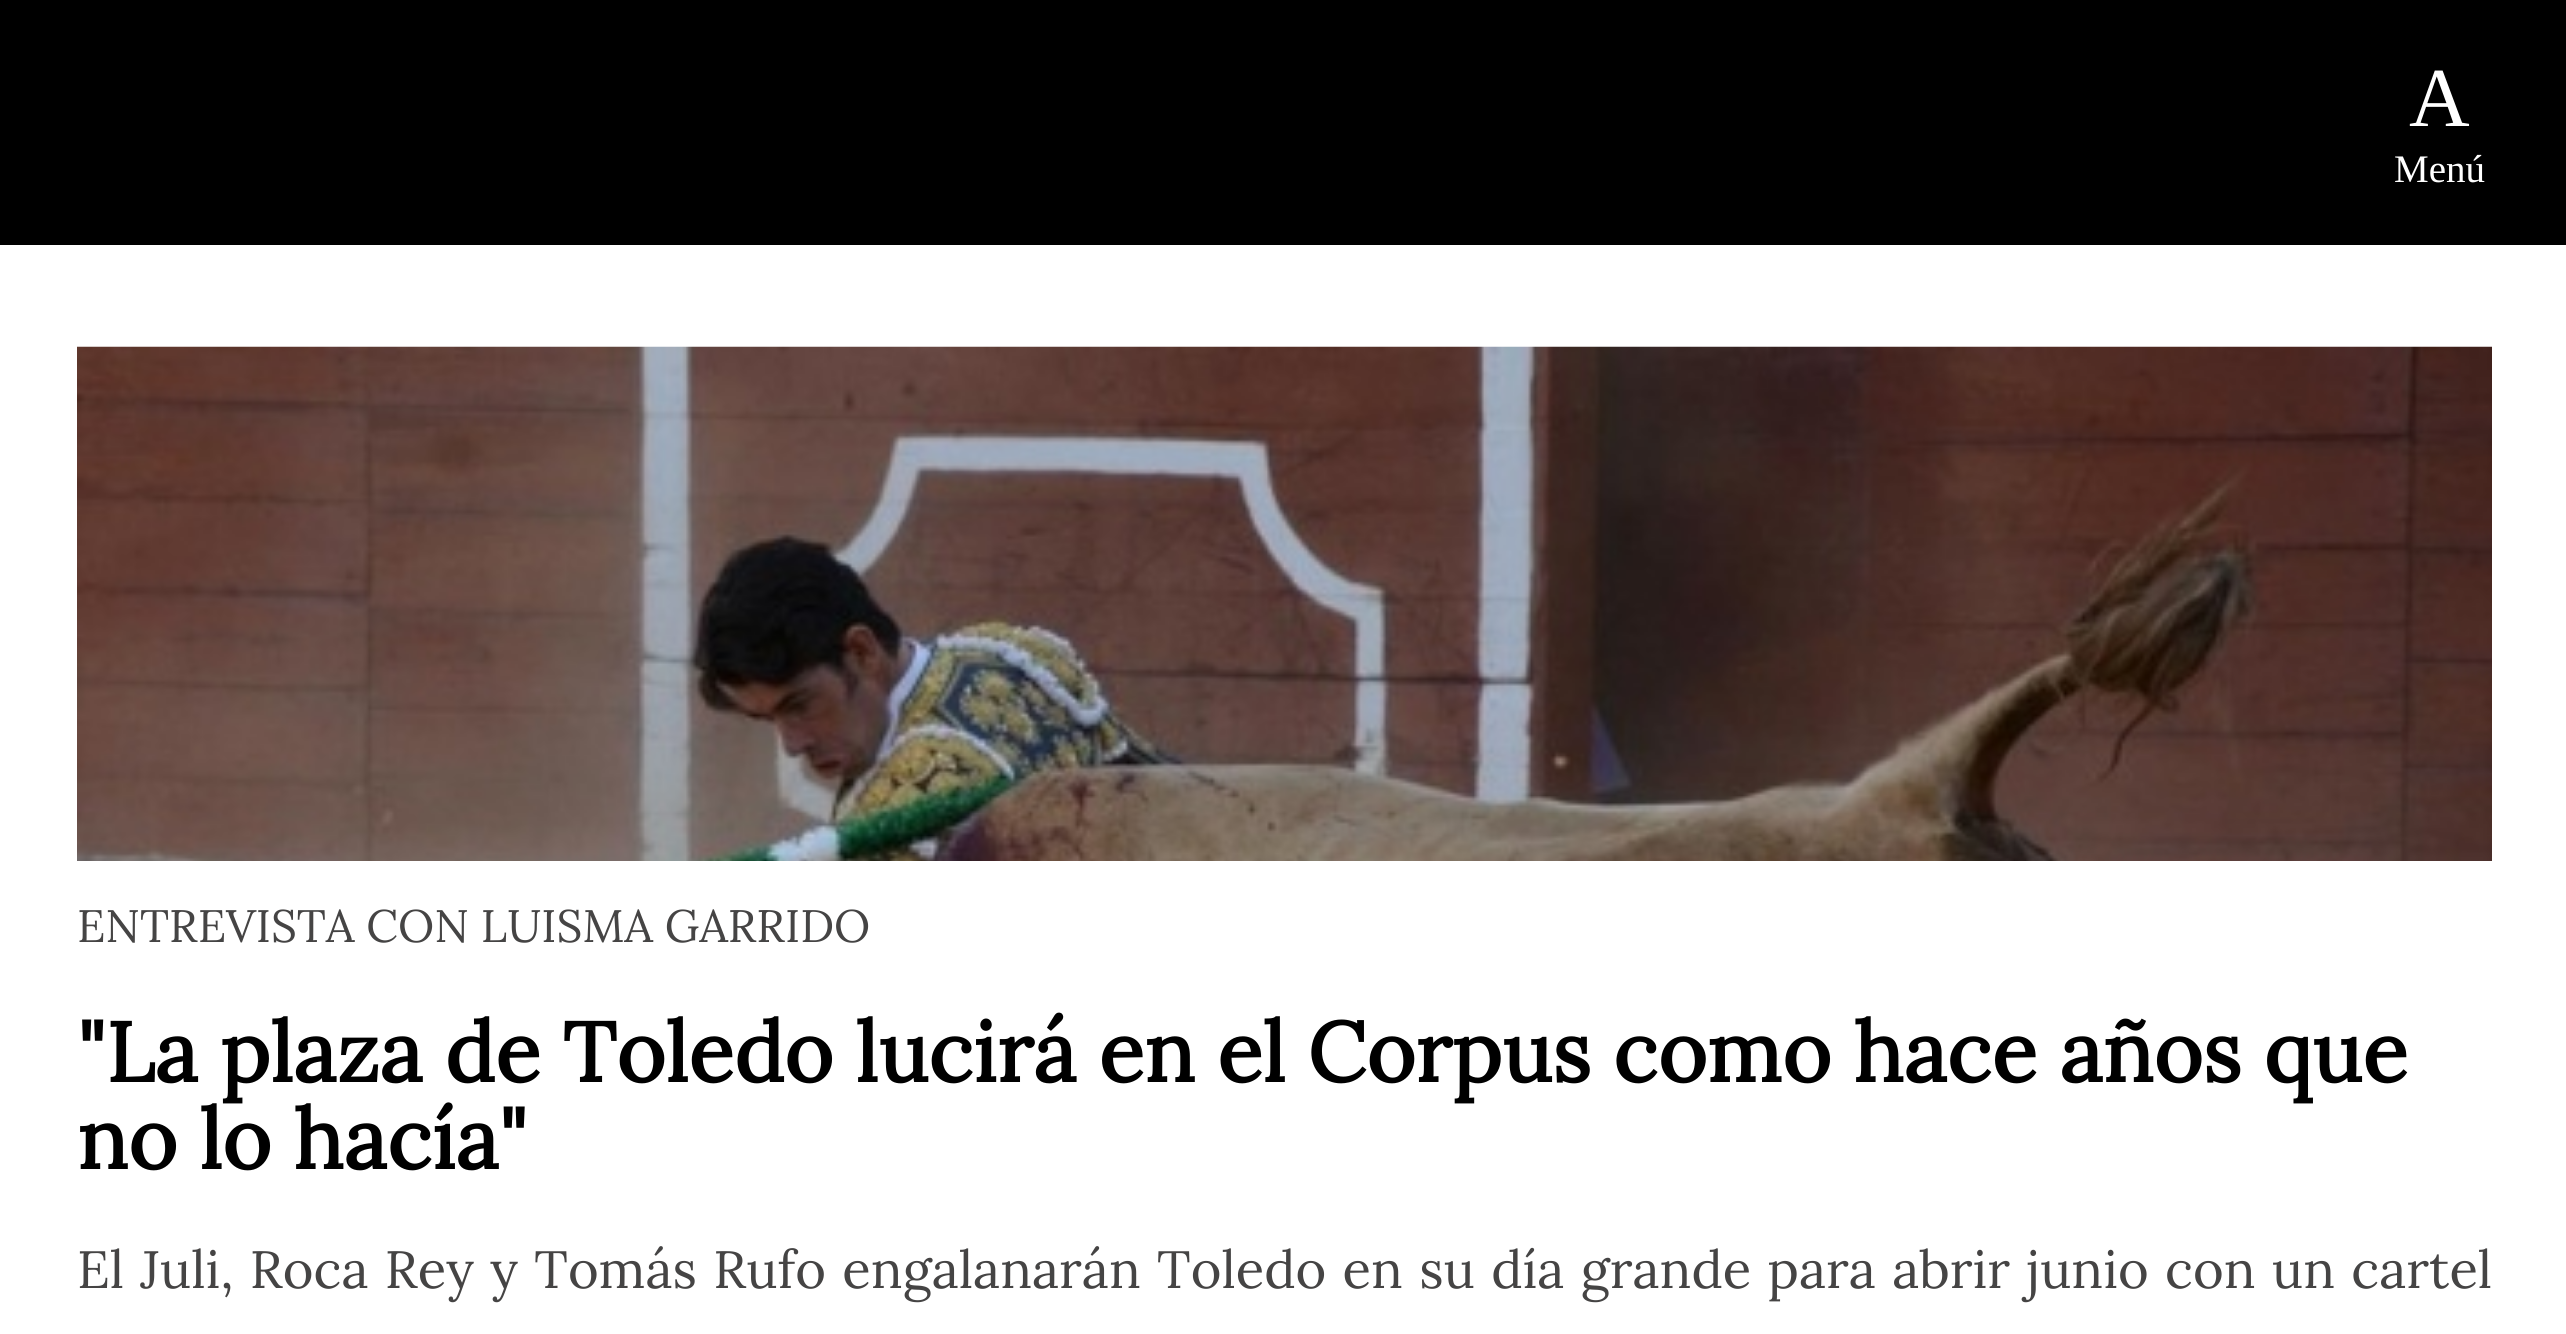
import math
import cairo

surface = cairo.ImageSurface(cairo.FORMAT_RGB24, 2566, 1334)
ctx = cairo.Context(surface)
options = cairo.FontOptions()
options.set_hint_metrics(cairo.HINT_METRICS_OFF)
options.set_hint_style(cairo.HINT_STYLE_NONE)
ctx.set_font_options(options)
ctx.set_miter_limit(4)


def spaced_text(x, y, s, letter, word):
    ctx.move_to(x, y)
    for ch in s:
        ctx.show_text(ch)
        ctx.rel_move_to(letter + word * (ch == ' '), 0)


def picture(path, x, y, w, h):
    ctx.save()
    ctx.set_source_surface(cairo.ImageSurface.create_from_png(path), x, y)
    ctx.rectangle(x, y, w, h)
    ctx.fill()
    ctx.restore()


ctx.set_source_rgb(1, 1, 1)
ctx.paint()
ctx.set_source_rgb(0, 0, 0)
ctx.rectangle(0, 0, 2566, 245)
ctx.fill()
ctx.select_font_face("Liberation Serif")
ctx.set_font_size(84)
ctx.set_source_rgb(1, 1, 1)
ctx.move_to(2409, 126)
ctx.show_text("A")
ctx.set_font_size(39)
ctx.move_to(2394, 182)
ctx.show_text("Menú")
picture("img1.png", 77, 346, 2415, 515)
ctx.select_font_face("Lora")
ctx.set_font_size(45.5)
ctx.set_source_rgb(0.271, 0.267, 0.267)
ctx.move_to(77, 942)
ctx.show_text("ENTREVISTA CON LUISMA GARRIDO")
ctx.select_font_face("Lora", cairo.FONT_SLANT_NORMAL, cairo.FONT_WEIGHT_BOLD)
ctx.set_font_size(84)
ctx.set_source_rgb(0, 0, 0)
ctx.move_to(77, 1082)
ctx.show_text("\"La plaza de Toledo lucirá en el Corpus como hace años que")
ctx.move_to(77, 1169)
ctx.show_text("no lo hacía\"")
ctx.select_font_face("Lora")
ctx.set_font_size(52.5)
ctx.set_source_rgb(0.271, 0.267, 0.267)
spaced_text(77, 1288, "El Juli, Roca Rey y Tomás Rufo engalanarán Toledo en su día grande para abrir junio con un cartel", 0, 2.5)
surface.write_to_png("page.png")
